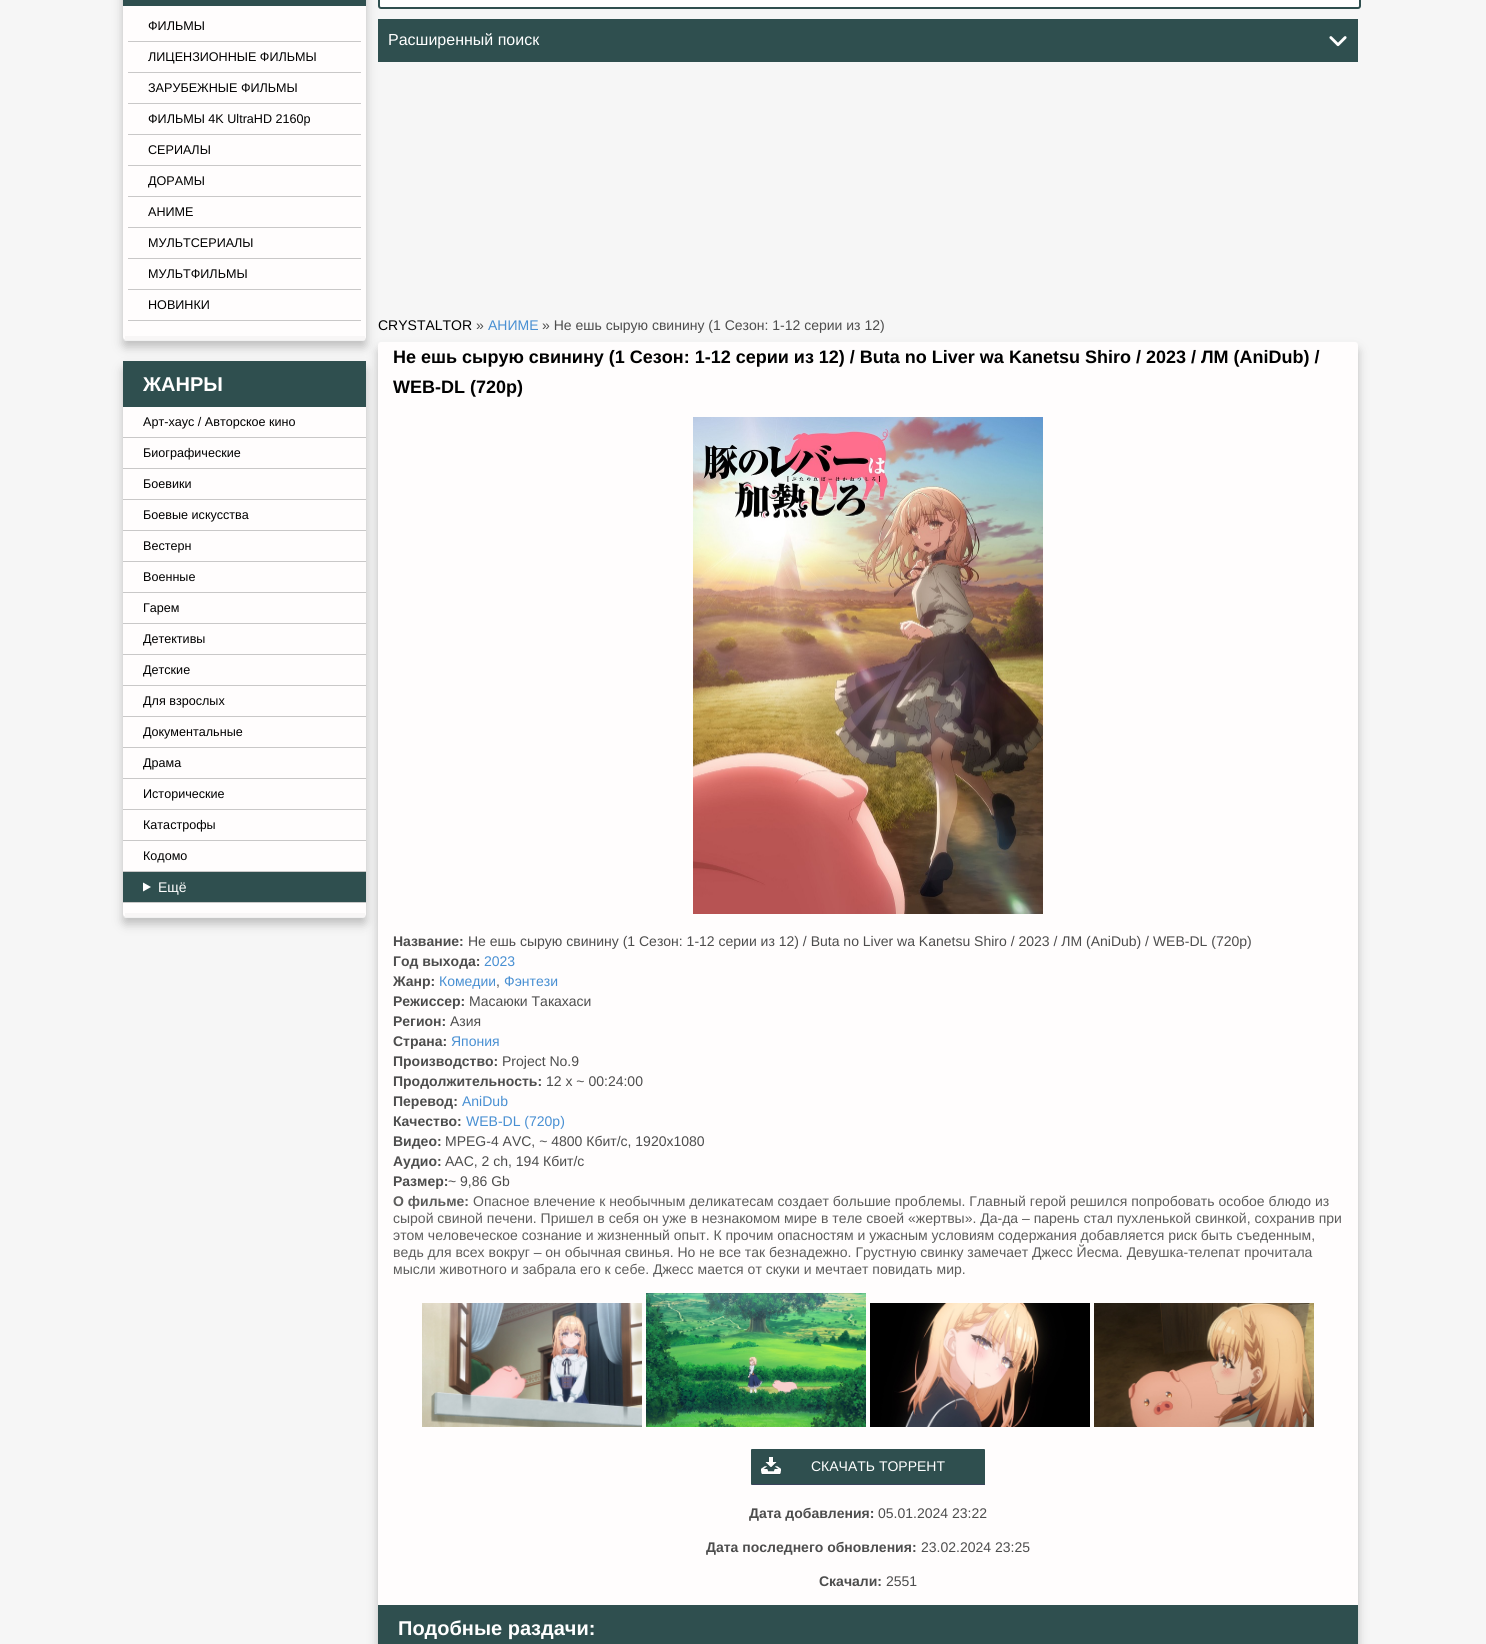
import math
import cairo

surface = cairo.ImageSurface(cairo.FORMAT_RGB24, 1486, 1644)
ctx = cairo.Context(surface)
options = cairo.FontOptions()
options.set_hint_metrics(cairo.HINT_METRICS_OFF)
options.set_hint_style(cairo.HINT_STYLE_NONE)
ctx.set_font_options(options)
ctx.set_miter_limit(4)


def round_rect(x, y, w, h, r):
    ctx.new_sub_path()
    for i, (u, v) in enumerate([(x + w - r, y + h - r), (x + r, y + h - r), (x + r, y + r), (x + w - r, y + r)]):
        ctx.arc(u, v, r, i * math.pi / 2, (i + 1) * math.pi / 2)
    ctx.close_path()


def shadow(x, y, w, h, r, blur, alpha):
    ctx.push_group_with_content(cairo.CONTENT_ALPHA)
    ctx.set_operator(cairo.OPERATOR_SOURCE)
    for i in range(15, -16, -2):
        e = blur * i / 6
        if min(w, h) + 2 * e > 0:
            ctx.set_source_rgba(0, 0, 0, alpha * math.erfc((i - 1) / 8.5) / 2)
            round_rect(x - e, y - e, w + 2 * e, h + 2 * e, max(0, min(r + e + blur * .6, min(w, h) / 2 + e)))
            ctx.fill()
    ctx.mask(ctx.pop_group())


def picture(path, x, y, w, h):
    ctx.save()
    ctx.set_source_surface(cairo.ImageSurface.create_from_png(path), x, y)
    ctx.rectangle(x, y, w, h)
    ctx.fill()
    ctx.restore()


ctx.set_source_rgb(0.961, 0.961, 0.961)
ctx.paint()
ctx.set_source_rgb(1, 1, 1)
round_rect(379, -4, 981, 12, 2)
ctx.fill_preserve()
ctx.set_source_rgb(0.184, 0.31, 0.31)
ctx.stroke()
ctx.rectangle(378, 19, 980, 43)
ctx.fill()
ctx.set_source_rgb(0.745, 0.745, 0.745)
shadow(378, 349, 980, 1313, 3, 5, 1)
ctx.set_source_rgb(1, 0.992, 0.992)
round_rect(378, 342, 980, 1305, 3)
ctx.fill()
ctx.set_source_rgb(0.745, 0.745, 0.745)
shadow(123, -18, 243, 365, 3, 5, 1)
ctx.set_source_rgb(0.945, 0.945, 0.945)
ctx.new_path()
ctx.move_to(123, 337)
ctx.curve_to(123, 339, 124, 341, 126, 341)
ctx.line_to(363, 341)
ctx.curve_to(365, 341, 366, 339, 366, 337)
ctx.curve_to(366, 339, 365, 340, 363, 340)
ctx.line_to(126, 340)
ctx.curve_to(124, 340, 123, 339, 123, 337)
ctx.close_path()
ctx.fill()
ctx.set_source_rgb(1, 0.992, 0.992)
round_rect(123, -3, 243, 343, 3)
ctx.fill()
ctx.set_source_rgb(0.969, 0.961, 0.961)
ctx.rectangle(125, 336, 240, 4)
ctx.fill()
ctx.set_source_rgb(0.184, 0.31, 0.31)
ctx.rectangle(123, 0, 243, 6)
ctx.fill()
ctx.set_source_rgb(0.788, 0.784, 0.784)
ctx.rectangle(128, 41, 233, 1)
ctx.fill()
ctx.select_font_face("Liberation Sans")
ctx.set_font_size(12.6)
ctx.set_source_rgb(0, 0, 0)
ctx.move_to(148, 30)
ctx.show_text("ФИЛЬМЫ")
ctx.set_source_rgb(0.788, 0.784, 0.784)
ctx.rectangle(128, 72, 233, 1)
ctx.fill()
ctx.set_source_rgb(0, 0, 0)
ctx.move_to(148, 61)
ctx.show_text("ЛИЦЕНЗИОННЫЕ ФИЛЬМЫ")
ctx.set_source_rgb(0.788, 0.784, 0.784)
ctx.rectangle(128, 103, 233, 1)
ctx.fill()
ctx.set_source_rgb(0, 0, 0)
ctx.move_to(148, 92)
ctx.show_text("ЗАРУБЕЖНЫЕ ФИЛЬМЫ")
ctx.set_source_rgb(0.788, 0.784, 0.784)
ctx.rectangle(128, 134, 233, 1)
ctx.fill()
ctx.set_source_rgb(0, 0, 0)
ctx.move_to(148, 123)
ctx.show_text("ФИЛЬМЫ 4K UltraHD 2160p")
ctx.set_source_rgb(0.788, 0.784, 0.784)
ctx.rectangle(128, 165, 233, 1)
ctx.fill()
ctx.set_source_rgb(0, 0, 0)
ctx.move_to(148, 154)
ctx.show_text("СЕРИАЛЫ")
ctx.set_source_rgb(0.788, 0.784, 0.784)
ctx.rectangle(128, 196, 233, 1)
ctx.fill()
ctx.set_source_rgb(0, 0, 0)
ctx.move_to(148, 185)
ctx.show_text("ДОРАМЫ")
ctx.set_source_rgb(0.788, 0.784, 0.784)
ctx.rectangle(128, 227, 233, 1)
ctx.fill()
ctx.set_source_rgb(0, 0, 0)
ctx.move_to(148, 216)
ctx.show_text("АНИМЕ")
ctx.set_source_rgb(0.788, 0.784, 0.784)
ctx.rectangle(128, 258, 233, 1)
ctx.fill()
ctx.set_source_rgb(0, 0, 0)
ctx.move_to(148, 247)
ctx.show_text("МУЛЬТСЕРИАЛЫ")
ctx.set_source_rgb(0.788, 0.784, 0.784)
ctx.rectangle(128, 289, 233, 1)
ctx.fill()
ctx.set_source_rgb(0, 0, 0)
ctx.move_to(148, 278)
ctx.show_text("МУЛЬТФИЛЬМЫ")
ctx.set_source_rgb(0.788, 0.784, 0.784)
ctx.rectangle(128, 320, 233, 1)
ctx.fill()
ctx.set_source_rgb(0, 0, 0)
ctx.move_to(148, 309)
ctx.show_text("НОВИНКИ")
ctx.set_source_rgb(0.745, 0.745, 0.745)
shadow(123, 368, 243, 556, 3, 5, 1)
ctx.set_source_rgb(0.945, 0.945, 0.945)
ctx.new_path()
ctx.move_to(123, 914)
ctx.curve_to(123, 916, 124, 918, 126, 918)
ctx.line_to(363, 918)
ctx.curve_to(365, 918, 366, 916, 366, 914)
ctx.curve_to(366, 916, 365, 917, 363, 917)
ctx.line_to(126, 917)
ctx.curve_to(124, 917, 123, 916, 123, 914)
ctx.close_path()
ctx.fill()
ctx.set_source_rgb(1, 0.992, 0.992)
round_rect(123, 361, 243, 556, 3)
ctx.fill()
ctx.set_source_rgb(0.969, 0.961, 0.961)
ctx.rectangle(125, 913, 240, 4)
ctx.fill()
ctx.set_source_rgb(0.184, 0.31, 0.31)
ctx.rectangle(123, 361, 243, 46)
ctx.fill()
ctx.select_font_face("Liberation Sans", cairo.FONT_SLANT_NORMAL, cairo.FONT_WEIGHT_BOLD)
ctx.set_font_size(20)
ctx.set_source_rgb(1, 1, 1)
ctx.move_to(143, 391)
ctx.show_text("ЖАНРЫ")
ctx.set_source_rgb(0.788, 0.784, 0.784)
ctx.rectangle(123, 437, 243, 1)
ctx.fill()
ctx.select_font_face("Liberation Sans")
ctx.set_font_size(12.6)
ctx.set_source_rgb(0, 0, 0)
ctx.move_to(143, 426)
ctx.show_text("Арт-хаус / Авторское кино")
ctx.set_source_rgb(0.788, 0.784, 0.784)
ctx.rectangle(123, 468, 243, 1)
ctx.fill()
ctx.set_source_rgb(0, 0, 0)
ctx.move_to(143, 457)
ctx.show_text("Биографические")
ctx.set_source_rgb(0.788, 0.784, 0.784)
ctx.rectangle(123, 499, 243, 1)
ctx.fill()
ctx.set_source_rgb(0, 0, 0)
ctx.move_to(143, 488)
ctx.show_text("Боевики")
ctx.set_source_rgb(0.788, 0.784, 0.784)
ctx.rectangle(123, 530, 243, 1)
ctx.fill()
ctx.set_source_rgb(0, 0, 0)
ctx.move_to(143, 519)
ctx.show_text("Боевые искусства")
ctx.set_source_rgb(0.788, 0.784, 0.784)
ctx.rectangle(123, 561, 243, 1)
ctx.fill()
ctx.set_source_rgb(0, 0, 0)
ctx.move_to(143, 550)
ctx.show_text("Вестерн")
ctx.set_source_rgb(0.788, 0.784, 0.784)
ctx.rectangle(123, 592, 243, 1)
ctx.fill()
ctx.set_source_rgb(0, 0, 0)
ctx.move_to(143, 581)
ctx.show_text("Военные")
ctx.set_source_rgb(0.788, 0.784, 0.784)
ctx.rectangle(123, 623, 243, 1)
ctx.fill()
ctx.set_source_rgb(0, 0, 0)
ctx.move_to(143, 612)
ctx.show_text("Гарем")
ctx.set_source_rgb(0.788, 0.784, 0.784)
ctx.rectangle(123, 654, 243, 1)
ctx.fill()
ctx.set_source_rgb(0, 0, 0)
ctx.move_to(143, 643)
ctx.show_text("Детективы")
ctx.set_source_rgb(0.788, 0.784, 0.784)
ctx.rectangle(123, 685, 243, 1)
ctx.fill()
ctx.set_source_rgb(0, 0, 0)
ctx.move_to(143, 674)
ctx.show_text("Детские")
ctx.set_source_rgb(0.788, 0.784, 0.784)
ctx.rectangle(123, 716, 243, 1)
ctx.fill()
ctx.set_source_rgb(0, 0, 0)
ctx.move_to(143, 705)
ctx.show_text("Для взрослых")
ctx.set_source_rgb(0.788, 0.784, 0.784)
ctx.rectangle(123, 747, 243, 1)
ctx.fill()
ctx.set_source_rgb(0, 0, 0)
ctx.move_to(143, 736)
ctx.show_text("Документальные")
ctx.set_source_rgb(0.788, 0.784, 0.784)
ctx.rectangle(123, 778, 243, 1)
ctx.fill()
ctx.set_source_rgb(0, 0, 0)
ctx.move_to(143, 767)
ctx.show_text("Драма")
ctx.set_source_rgb(0.788, 0.784, 0.784)
ctx.rectangle(123, 809, 243, 1)
ctx.fill()
ctx.set_source_rgb(0, 0, 0)
ctx.move_to(143, 798)
ctx.show_text("Исторические")
ctx.set_source_rgb(0.788, 0.784, 0.784)
ctx.rectangle(123, 840, 243, 1)
ctx.fill()
ctx.set_source_rgb(0, 0, 0)
ctx.move_to(143, 829)
ctx.show_text("Катастрофы")
ctx.set_source_rgb(0.788, 0.784, 0.784)
ctx.rectangle(123, 871, 243, 1)
ctx.fill()
ctx.set_source_rgb(0, 0, 0)
ctx.move_to(143, 860)
ctx.show_text("Кодомо")
ctx.set_source_rgb(0.184, 0.31, 0.31)
ctx.rectangle(123, 872, 243, 30)
ctx.fill()
ctx.set_source_rgb(0.788, 0.784, 0.784)
ctx.rectangle(123, 902, 243, 1)
ctx.fill()
ctx.set_source_rgb(1, 1, 1)
ctx.new_path()
ctx.move_to(143, 882.5)
ctx.line_to(151, 887)
ctx.line_to(143, 891.5)
ctx.close_path()
ctx.fill()
ctx.set_font_size(14)
ctx.move_to(158, 892)
ctx.show_text("Ещё")
ctx.set_font_size(16)
ctx.move_to(388, 45)
ctx.show_text("Расширенный поиск")
picture("img1.png", 1329, 36, 18, 11)
ctx.set_font_size(14)
ctx.set_source_rgb(0, 0, 0)
ctx.move_to(378, 330)
ctx.show_text("CRYSTALTOR")
ctx.set_source_rgb(0.302, 0.302, 0.302)
ctx.move_to(476, 330)
ctx.show_text("»")
ctx.set_source_rgb(0.282, 0.561, 0.824)
ctx.move_to(488, 330)
ctx.show_text("АНИМЕ")
ctx.set_source_rgb(0.302, 0.302, 0.302)
ctx.move_to(542, 330)
ctx.show_text("» Не ешь сырую свинину (1 Сезон: 1-12 серии из 12)")
ctx.select_font_face("Liberation Sans", cairo.FONT_SLANT_NORMAL, cairo.FONT_WEIGHT_BOLD)
ctx.set_font_size(18)
ctx.set_source_rgb(0, 0, 0)
ctx.move_to(393, 363)
ctx.show_text("Не ешь сырую свинину (1 Сезон: 1-12 серии из 12) / Buta no Liver wa Kanetsu Shiro / 2023 / ЛМ (AniDub) /")
ctx.move_to(393, 393)
ctx.show_text("WEB-DL (720p)")
picture("img2.png", 693, 417, 350, 497)
ctx.set_font_size(14)
ctx.set_source_rgb(0.302, 0.302, 0.302)
ctx.move_to(393, 946)
ctx.show_text("Название:")
ctx.select_font_face("Liberation Sans")
ctx.move_to(468, 946)
ctx.show_text("Не ешь сырую свинину (1 Сезон: 1-12 серии из 12) / Buta no Liver wa Kanetsu Shiro / 2023 / ЛМ (AniDub) / WEB-DL (720p)")
ctx.select_font_face("Liberation Sans", cairo.FONT_SLANT_NORMAL, cairo.FONT_WEIGHT_BOLD)
ctx.move_to(393, 966)
ctx.show_text("Год выхода:")
ctx.select_font_face("Liberation Sans")
ctx.set_source_rgb(0.282, 0.561, 0.824)
ctx.move_to(484, 966)
ctx.show_text("2023")
ctx.select_font_face("Liberation Sans", cairo.FONT_SLANT_NORMAL, cairo.FONT_WEIGHT_BOLD)
ctx.set_source_rgb(0.302, 0.302, 0.302)
ctx.move_to(393, 986)
ctx.show_text("Жанр:")
ctx.select_font_face("Liberation Sans")
ctx.set_source_rgb(0.282, 0.561, 0.824)
ctx.move_to(439, 986)
ctx.show_text("Комедии")
ctx.set_source_rgb(0.302, 0.302, 0.302)
ctx.move_to(496, 986)
ctx.show_text(",")
ctx.set_source_rgb(0.282, 0.561, 0.824)
ctx.move_to(504, 986)
ctx.show_text("Фэнтези")
ctx.select_font_face("Liberation Sans", cairo.FONT_SLANT_NORMAL, cairo.FONT_WEIGHT_BOLD)
ctx.set_source_rgb(0.302, 0.302, 0.302)
ctx.move_to(393, 1006)
ctx.show_text("Режиссер:")
ctx.select_font_face("Liberation Sans")
ctx.move_to(469, 1006)
ctx.show_text("Масаюки Такахаси")
ctx.select_font_face("Liberation Sans", cairo.FONT_SLANT_NORMAL, cairo.FONT_WEIGHT_BOLD)
ctx.move_to(393, 1026)
ctx.show_text("Регион:")
ctx.select_font_face("Liberation Sans")
ctx.move_to(450, 1026)
ctx.show_text("Азия")
ctx.select_font_face("Liberation Sans", cairo.FONT_SLANT_NORMAL, cairo.FONT_WEIGHT_BOLD)
ctx.move_to(393, 1046)
ctx.show_text("Страна:")
ctx.select_font_face("Liberation Sans")
ctx.set_source_rgb(0.282, 0.561, 0.824)
ctx.move_to(451, 1046)
ctx.show_text("Япония")
ctx.select_font_face("Liberation Sans", cairo.FONT_SLANT_NORMAL, cairo.FONT_WEIGHT_BOLD)
ctx.set_source_rgb(0.302, 0.302, 0.302)
ctx.move_to(393, 1066)
ctx.show_text("Производство:")
ctx.select_font_face("Liberation Sans")
ctx.move_to(502, 1066)
ctx.show_text("Project No.9")
ctx.select_font_face("Liberation Sans", cairo.FONT_SLANT_NORMAL, cairo.FONT_WEIGHT_BOLD)
ctx.move_to(393, 1086)
ctx.show_text("Продолжительность:")
ctx.select_font_face("Liberation Sans")
ctx.move_to(546, 1086)
ctx.show_text("12 x ~ 00:24:00")
ctx.select_font_face("Liberation Sans", cairo.FONT_SLANT_NORMAL, cairo.FONT_WEIGHT_BOLD)
ctx.move_to(393, 1106)
ctx.show_text("Перевод:")
ctx.select_font_face("Liberation Sans")
ctx.set_source_rgb(0.282, 0.561, 0.824)
ctx.move_to(462, 1106)
ctx.show_text("AniDub")
ctx.select_font_face("Liberation Sans", cairo.FONT_SLANT_NORMAL, cairo.FONT_WEIGHT_BOLD)
ctx.set_source_rgb(0.302, 0.302, 0.302)
ctx.move_to(393, 1126)
ctx.show_text("Качество:")
ctx.select_font_face("Liberation Sans")
ctx.set_source_rgb(0.282, 0.561, 0.824)
ctx.move_to(466, 1126)
ctx.show_text("WEB-DL (720p)")
ctx.select_font_face("Liberation Sans", cairo.FONT_SLANT_NORMAL, cairo.FONT_WEIGHT_BOLD)
ctx.set_source_rgb(0.302, 0.302, 0.302)
ctx.move_to(393, 1146)
ctx.show_text("Видео:")
ctx.select_font_face("Liberation Sans")
ctx.move_to(445, 1146)
ctx.show_text("MPEG-4 AVC, ~ 4800 Кбит/с, 1920x1080")
ctx.select_font_face("Liberation Sans", cairo.FONT_SLANT_NORMAL, cairo.FONT_WEIGHT_BOLD)
ctx.move_to(393, 1166)
ctx.show_text("Аудио:")
ctx.select_font_face("Liberation Sans")
ctx.move_to(445, 1166)
ctx.show_text("AAC, 2 ch, 194 Кбит/с")
ctx.select_font_face("Liberation Sans", cairo.FONT_SLANT_NORMAL, cairo.FONT_WEIGHT_BOLD)
ctx.move_to(393, 1186)
ctx.show_text("Размер:")
ctx.select_font_face("Liberation Sans")
ctx.move_to(448, 1186)
ctx.show_text("~ 9,86 Gb")
ctx.select_font_face("Liberation Sans", cairo.FONT_SLANT_NORMAL, cairo.FONT_WEIGHT_BOLD)
ctx.set_source_rgb(0.365, 0.365, 0.361)
ctx.move_to(393, 1206)
ctx.show_text("О фильме:")
ctx.select_font_face("Liberation Sans")
ctx.move_to(473, 1206)
ctx.show_text("Опасное влечение к необычным деликатесам создает большие проблемы. Главный герой решился попробовать особое блюдо из")
ctx.move_to(393, 1223)
ctx.show_text("сырой свиной печени. Пришел в себя он уже в незнакомом мире в теле своей «жертвы». Да-да – парень стал пухленькой свинкой, сохранив при")
ctx.move_to(393, 1240)
ctx.show_text("этом человеческое сознание и жизненный опыт. К прочим опасностям и ужасным условиям содержания добавляется риск быть съеденным,")
ctx.move_to(393, 1257)
ctx.show_text("ведь для всех вокруг – он обычная свинья. Но не все так безнадежно. Грустную свинку замечает Джесс Йесма. Девушка-телепат прочитала")
ctx.move_to(393, 1274)
ctx.show_text("мысли животного и забрала его к себе. Джесс мается от скуки и мечтает повидать мир.")
picture("img3.png", 422, 1303, 220, 124)
picture("img4.png", 646, 1293, 220, 134)
picture("img5.png", 870, 1303, 220, 124)
picture("img6.png", 1094, 1303, 220, 124)
ctx.set_source_rgb(0.184, 0.31, 0.31)
round_rect(751, 1449, 234, 36, 1)
ctx.fill()
picture("img7.png", 761, 1457, 20, 18)
ctx.set_source_rgb(0.227, 0.263, 0.361)
ctx.rectangle(752, 1484, 233, 1)
ctx.fill()
ctx.set_source_rgb(1, 1, 1)
ctx.move_to(811, 1471)
ctx.show_text("СКАЧАТЬ ТОРРЕНТ")
ctx.select_font_face("Liberation Sans", cairo.FONT_SLANT_NORMAL, cairo.FONT_WEIGHT_BOLD)
ctx.set_source_rgb(0.302, 0.302, 0.302)
ctx.move_to(749, 1518)
ctx.show_text("Дата добавления:")
ctx.select_font_face("Liberation Sans")
ctx.move_to(878, 1518)
ctx.show_text("05.01.2024 23:22")
ctx.select_font_face("Liberation Sans", cairo.FONT_SLANT_NORMAL, cairo.FONT_WEIGHT_BOLD)
ctx.move_to(706, 1552)
ctx.show_text("Дата последнего обновления:")
ctx.select_font_face("Liberation Sans")
ctx.move_to(921, 1552)
ctx.show_text("23.02.2024 23:25")
ctx.select_font_face("Liberation Sans", cairo.FONT_SLANT_NORMAL, cairo.FONT_WEIGHT_BOLD)
ctx.move_to(819, 1586)
ctx.show_text("Скачали:")
ctx.select_font_face("Liberation Sans")
ctx.move_to(886, 1586)
ctx.show_text("2551")
ctx.set_source_rgb(0.184, 0.31, 0.31)
ctx.rectangle(378, 1605, 980, 39)
ctx.fill()
ctx.select_font_face("Liberation Sans", cairo.FONT_SLANT_NORMAL, cairo.FONT_WEIGHT_BOLD)
ctx.set_font_size(20)
ctx.set_source_rgb(1, 1, 1)
ctx.move_to(398, 1635)
ctx.show_text("Подобные раздачи:")
surface.write_to_png("page.png")
